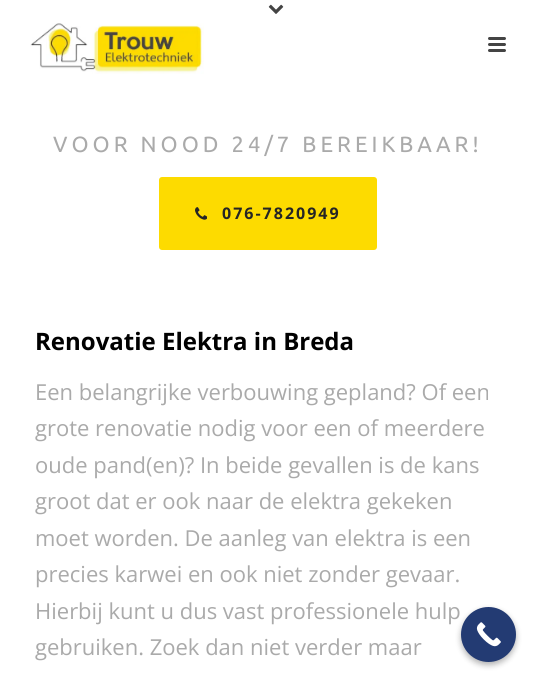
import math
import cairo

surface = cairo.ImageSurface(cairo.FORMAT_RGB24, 536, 677)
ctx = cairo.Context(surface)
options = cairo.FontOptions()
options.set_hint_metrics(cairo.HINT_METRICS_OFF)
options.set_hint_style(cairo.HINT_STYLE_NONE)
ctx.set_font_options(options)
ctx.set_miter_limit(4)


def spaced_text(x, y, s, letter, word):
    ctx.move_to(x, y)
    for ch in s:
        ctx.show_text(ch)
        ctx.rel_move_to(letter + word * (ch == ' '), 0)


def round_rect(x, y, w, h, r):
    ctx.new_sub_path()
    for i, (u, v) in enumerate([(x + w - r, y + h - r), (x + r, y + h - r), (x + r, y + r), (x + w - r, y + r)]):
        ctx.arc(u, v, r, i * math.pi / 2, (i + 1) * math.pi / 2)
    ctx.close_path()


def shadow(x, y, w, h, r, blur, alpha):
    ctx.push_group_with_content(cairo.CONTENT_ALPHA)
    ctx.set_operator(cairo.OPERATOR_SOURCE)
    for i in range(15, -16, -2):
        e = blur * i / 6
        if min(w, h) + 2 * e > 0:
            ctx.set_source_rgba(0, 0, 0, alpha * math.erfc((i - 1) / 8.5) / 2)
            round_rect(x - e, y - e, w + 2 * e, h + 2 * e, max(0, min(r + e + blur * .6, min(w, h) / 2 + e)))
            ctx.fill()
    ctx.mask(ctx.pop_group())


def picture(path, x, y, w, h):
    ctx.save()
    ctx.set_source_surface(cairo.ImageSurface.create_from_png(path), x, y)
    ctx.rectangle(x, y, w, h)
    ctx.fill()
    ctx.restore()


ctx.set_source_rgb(1, 1, 1)
ctx.paint()
picture("img1.png", 268, 4, 16, 10)
picture("img2.png", 30, 23, 174, 51)
ctx.set_source_rgb(0.267, 0.267, 0.267)
round_rect(488, 37, 18, 3, 1.5)
ctx.fill()
round_rect(488, 43, 18, 3, 1.5)
ctx.fill()
round_rect(488, 49, 18, 3, 1.5)
ctx.fill()
ctx.select_font_face("Ubuntu")
ctx.set_font_size(22)
ctx.set_source_rgb(0.667, 0.667, 0.667)
spaced_text(53, 152, "VOOR NOOD 24/7 BEREIKBAAR!", 4, 0)
ctx.set_source_rgb(0.992, 0.859, 0)
round_rect(159, 177, 218, 73, 3)
ctx.fill()
picture("img3.png", 195, 207, 12, 13)
ctx.select_font_face("Open Sans", cairo.FONT_SLANT_NORMAL, cairo.FONT_WEIGHT_BOLD)
ctx.set_font_size(16)
ctx.set_source_rgb(0.145, 0.145, 0.145)
spaced_text(222, 219, "076-7820949", 2, 0)
ctx.set_font_size(24)
ctx.set_source_rgb(0, 0, 0)
ctx.move_to(35, 350)
ctx.show_text("Renovatie Elektra in Breda")
ctx.select_font_face("Open Sans")
ctx.set_font_size(22)
ctx.set_source_rgb(0.667, 0.667, 0.667)
ctx.move_to(35, 400)
ctx.show_text("Een belangrijke verbouwing gepland? Of een")
ctx.move_to(35, 436)
ctx.show_text("grote renovatie nodig voor een of meerdere")
ctx.move_to(35, 473)
ctx.show_text("oude pand(en)? In beide gevallen is de kans")
ctx.move_to(35, 509)
ctx.show_text("groot dat er ook naar de elektra gekeken")
ctx.move_to(35, 546)
ctx.show_text("moet worden. De aanleg van elektra is een")
ctx.move_to(35, 582)
ctx.show_text("precies karwei en ook niet zonder gevaar.")
ctx.move_to(35, 619)
ctx.show_text("Hierbij kunt u dus vast professionele hulp")
ctx.move_to(35, 655)
ctx.show_text("gebruiken. Zoek dan niet verder maar")
ctx.set_source_rgb(0, 0, 0)
shadow(461, 610, 55, 55, 27.5, 3, 0.3)
ctx.set_source_rgb(0.137, 0.231, 0.451)
ctx.arc(488.5, 634.5, 27.5, 0, 2 * math.pi)
ctx.fill()
picture("img4.png", 476, 622, 25, 25)
surface.write_to_png("page.png")
